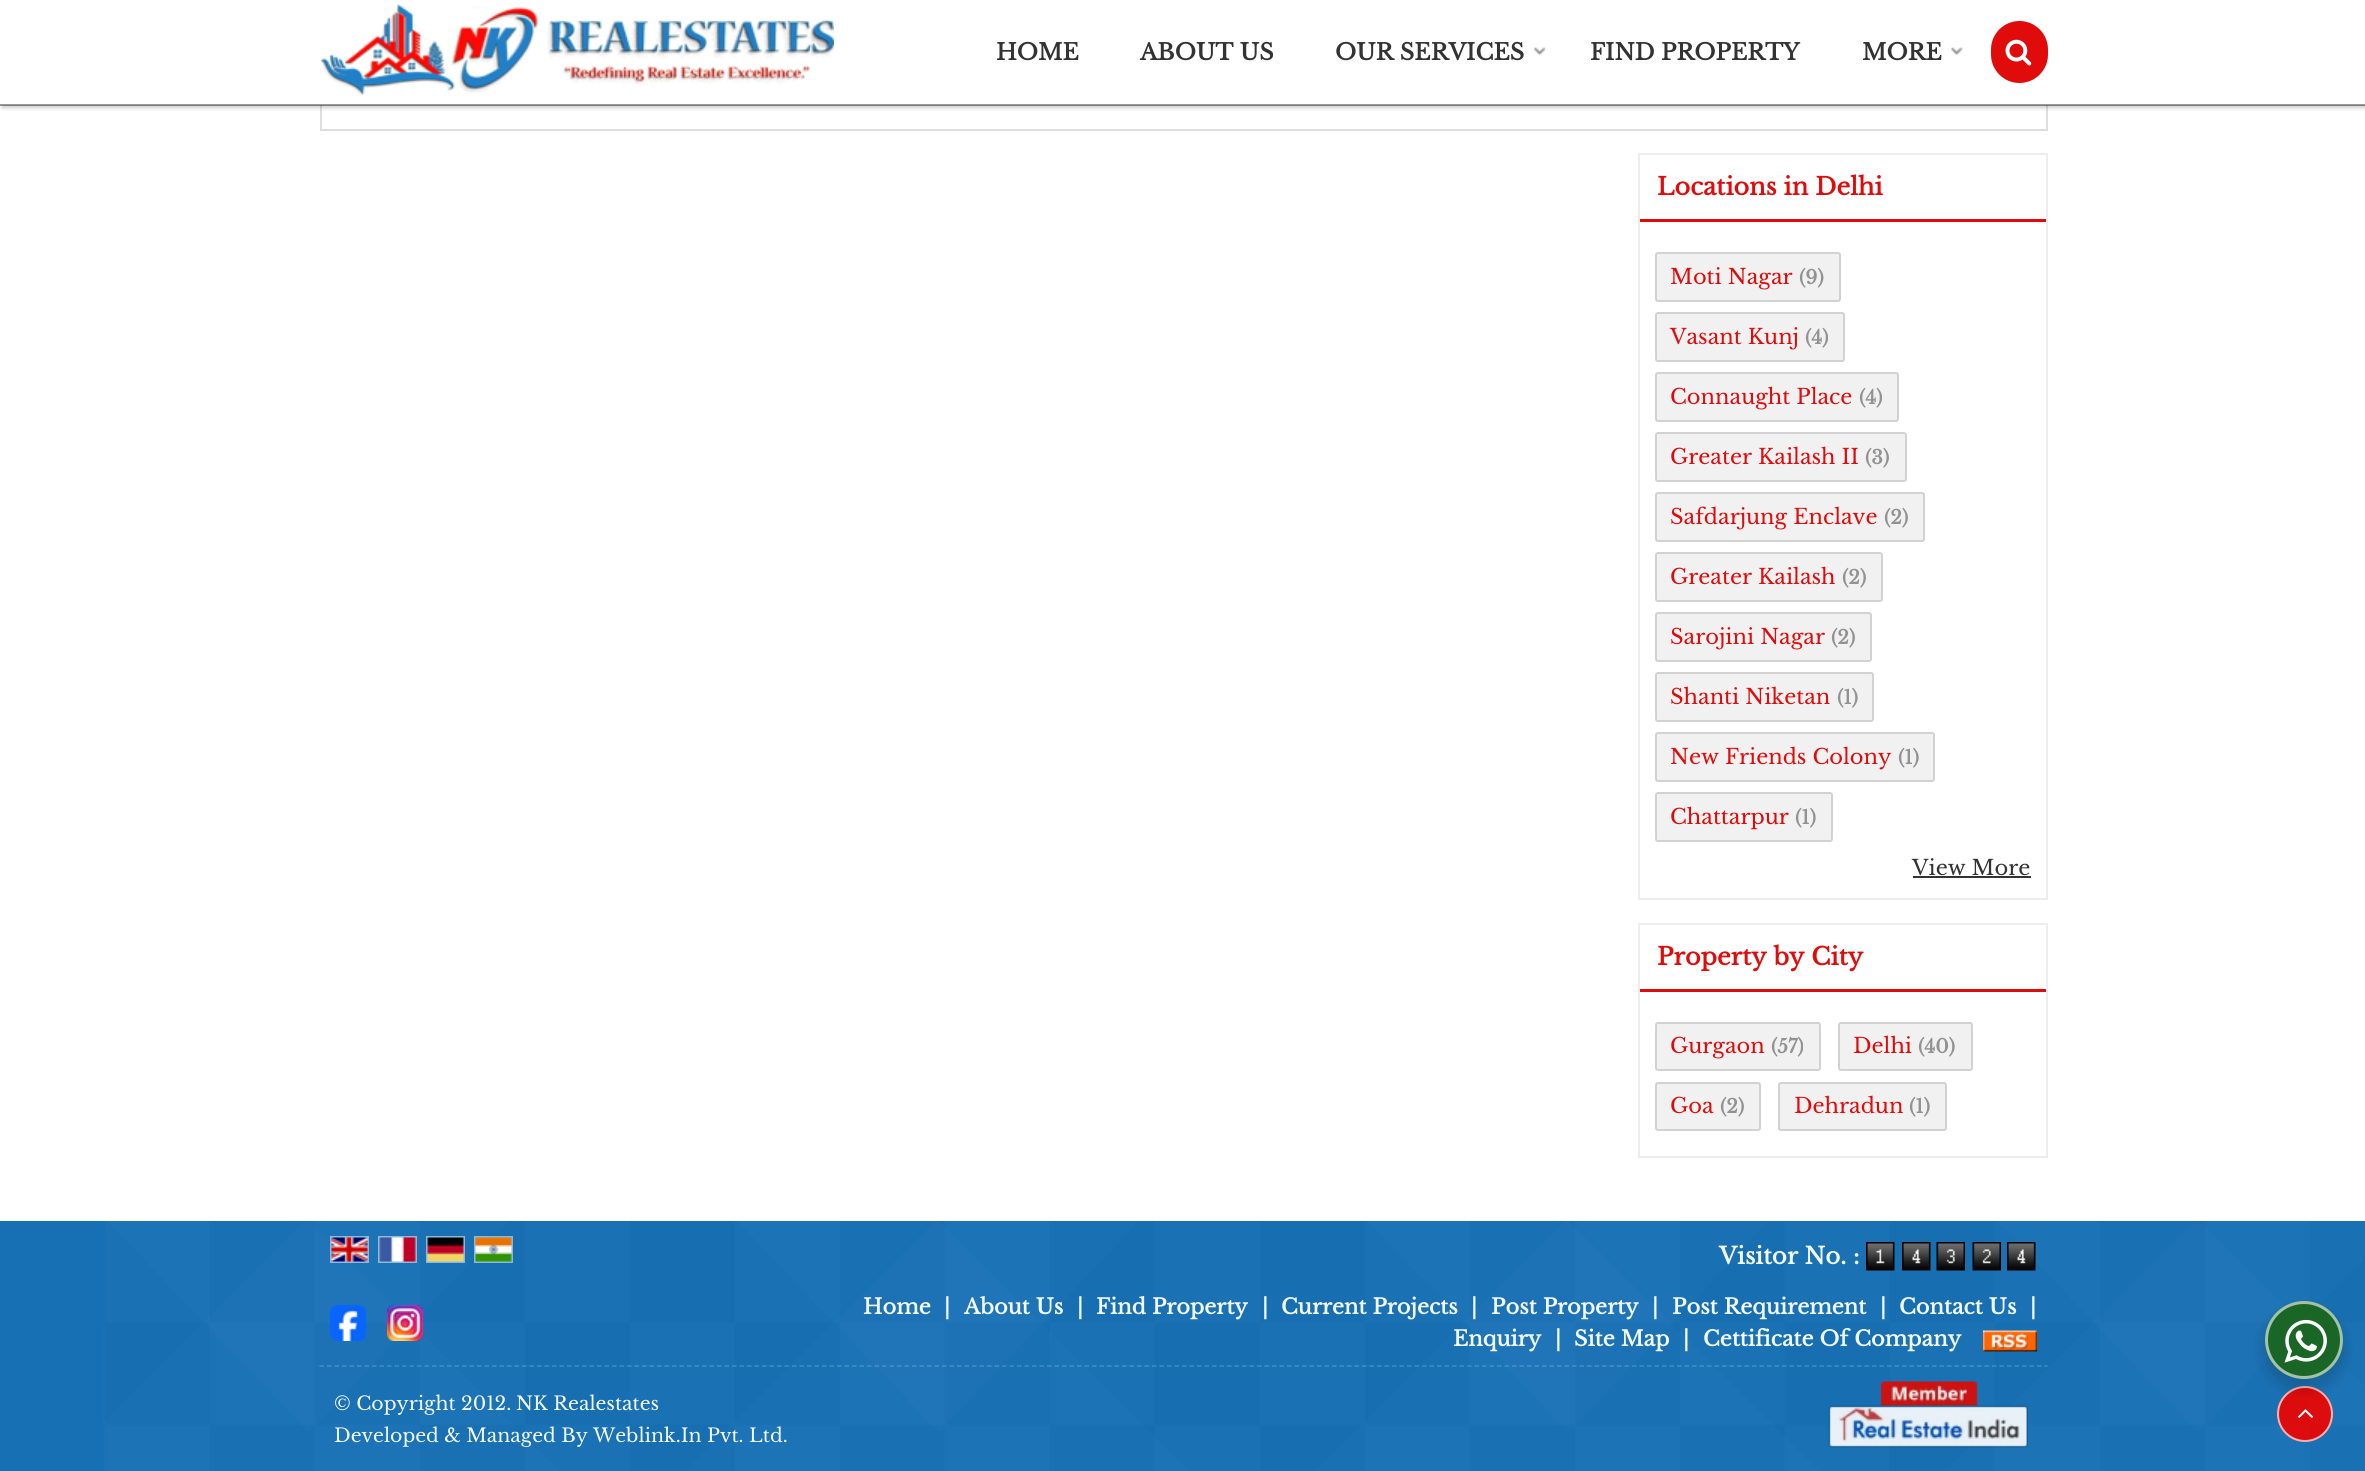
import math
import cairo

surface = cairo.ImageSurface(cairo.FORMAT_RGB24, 2365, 1471)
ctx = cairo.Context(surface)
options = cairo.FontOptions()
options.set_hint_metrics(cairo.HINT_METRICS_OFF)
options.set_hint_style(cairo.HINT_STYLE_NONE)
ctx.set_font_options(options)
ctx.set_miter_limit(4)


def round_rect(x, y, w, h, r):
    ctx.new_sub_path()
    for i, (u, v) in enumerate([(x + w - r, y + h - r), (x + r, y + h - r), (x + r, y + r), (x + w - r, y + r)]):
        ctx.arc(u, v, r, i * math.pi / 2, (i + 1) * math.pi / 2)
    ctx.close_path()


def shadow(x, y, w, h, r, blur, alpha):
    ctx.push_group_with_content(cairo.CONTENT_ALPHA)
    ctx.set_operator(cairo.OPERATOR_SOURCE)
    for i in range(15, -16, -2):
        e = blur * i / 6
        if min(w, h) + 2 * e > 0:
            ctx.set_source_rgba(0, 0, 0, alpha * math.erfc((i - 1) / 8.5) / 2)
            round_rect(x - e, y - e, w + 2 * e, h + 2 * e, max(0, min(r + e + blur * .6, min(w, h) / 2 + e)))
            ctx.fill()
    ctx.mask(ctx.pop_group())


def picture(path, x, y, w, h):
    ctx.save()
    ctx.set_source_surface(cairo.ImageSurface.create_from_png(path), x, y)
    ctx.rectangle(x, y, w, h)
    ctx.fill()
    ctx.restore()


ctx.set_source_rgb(1, 1, 1)
ctx.paint()
ctx.rectangle(321, 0, 1726, 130)
ctx.set_source_rgb(0.871, 0.871, 0.871)
ctx.stroke()
ctx.set_source_rgb(0, 0, 0)
shadow(2, 3, 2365, 105, 0, 2, 0.2)
ctx.set_source_rgb(1, 1, 1)
ctx.rectangle(0, 0, 2365, 105)
ctx.fill()
ctx.set_source_rgba(0, 0, 0, 0.4)
ctx.rectangle(0, 104, 2365, 2)
ctx.fill()
picture("img1.png", 320, 4, 514, 91)
ctx.select_font_face("Libre Baskerville", cairo.FONT_SLANT_NORMAL, cairo.FONT_WEIGHT_BOLD)
ctx.set_font_size(22.5)
ctx.set_source_rgb(0.2, 0.2, 0.2)
ctx.move_to(996, 60)
ctx.show_text("HOME")
ctx.move_to(1140, 60)
ctx.show_text("ABOUT US")
ctx.move_to(1335, 60)
ctx.show_text("OUR SERVICES")
picture("img2.png", 1534, 47, 12, 9)
ctx.move_to(1590, 60)
ctx.show_text("FIND PROPERTY")
ctx.move_to(1862, 60)
ctx.show_text("MORE")
picture("img2.png", 1951, 47, 12, 9)
ctx.set_source_rgb(0.878, 0.043, 0.043)
round_rect(1991, 21, 57, 62, 28.5)
ctx.fill()
picture("img3.png", 2005, 39, 27, 27)
ctx.rectangle(1639, 154, 408, 745)
ctx.set_source_rgb(0.929, 0.929, 0.929)
ctx.stroke()
ctx.set_source_rgb(0.878, 0.043, 0.043)
ctx.rectangle(1640, 219, 406, 3)
ctx.fill()
ctx.set_font_size(24)
ctx.move_to(1657, 195)
ctx.show_text("Locations in Delhi")
ctx.set_source_rgb(0.945, 0.945, 0.945)
round_rect(1655, 252, 186, 50, 3)
ctx.fill()
round_rect(1656, 253, 184, 48, 2)
ctx.set_source_rgba(0, 0, 0, 0.13)
ctx.stroke()
ctx.select_font_face("Libre Baskerville")
ctx.set_font_size(21)
ctx.set_source_rgb(0.878, 0.043, 0.043)
ctx.move_to(1670, 284)
ctx.show_text("Moti Nagar")
ctx.select_font_face("Libre Baskerville", cairo.FONT_SLANT_NORMAL, cairo.FONT_WEIGHT_BOLD)
ctx.set_font_size(18.9)
ctx.set_source_rgb(0.573, 0.573, 0.573)
ctx.move_to(1799, 284)
ctx.show_text("(9)")
ctx.set_source_rgb(0.945, 0.945, 0.945)
round_rect(1655, 312, 190, 50, 3)
ctx.fill()
round_rect(1656, 313, 188, 48, 2)
ctx.set_source_rgba(0, 0, 0, 0.13)
ctx.stroke()
ctx.select_font_face("Libre Baskerville")
ctx.set_font_size(21)
ctx.set_source_rgb(0.878, 0.043, 0.043)
ctx.move_to(1670, 344)
ctx.show_text("Vasant Kunj")
ctx.select_font_face("Libre Baskerville", cairo.FONT_SLANT_NORMAL, cairo.FONT_WEIGHT_BOLD)
ctx.set_font_size(18.9)
ctx.set_source_rgb(0.573, 0.573, 0.573)
ctx.move_to(1805, 344)
ctx.show_text("(4)")
ctx.set_source_rgb(0.945, 0.945, 0.945)
round_rect(1655, 372, 244, 50, 3)
ctx.fill()
round_rect(1656, 373, 242, 48, 2)
ctx.set_source_rgba(0, 0, 0, 0.13)
ctx.stroke()
ctx.select_font_face("Libre Baskerville")
ctx.set_font_size(21)
ctx.set_source_rgb(0.878, 0.043, 0.043)
ctx.move_to(1670, 404)
ctx.show_text("Connaught Place")
ctx.select_font_face("Libre Baskerville", cairo.FONT_SLANT_NORMAL, cairo.FONT_WEIGHT_BOLD)
ctx.set_font_size(18.9)
ctx.set_source_rgb(0.573, 0.573, 0.573)
ctx.move_to(1859, 404)
ctx.show_text("(4)")
ctx.set_source_rgb(0.945, 0.945, 0.945)
round_rect(1655, 432, 252, 50, 3)
ctx.fill()
round_rect(1656, 433, 250, 48, 2)
ctx.set_source_rgba(0, 0, 0, 0.13)
ctx.stroke()
ctx.select_font_face("Libre Baskerville")
ctx.set_font_size(21)
ctx.set_source_rgb(0.878, 0.043, 0.043)
ctx.move_to(1670, 464)
ctx.show_text("Greater Kailash II")
ctx.select_font_face("Libre Baskerville", cairo.FONT_SLANT_NORMAL, cairo.FONT_WEIGHT_BOLD)
ctx.set_font_size(18.9)
ctx.set_source_rgb(0.573, 0.573, 0.573)
ctx.move_to(1865, 464)
ctx.show_text("(3)")
ctx.set_source_rgb(0.945, 0.945, 0.945)
round_rect(1655, 492, 270, 50, 3)
ctx.fill()
round_rect(1656, 493, 268, 48, 2)
ctx.set_source_rgba(0, 0, 0, 0.13)
ctx.stroke()
ctx.select_font_face("Libre Baskerville")
ctx.set_font_size(21)
ctx.set_source_rgb(0.878, 0.043, 0.043)
ctx.move_to(1670, 524)
ctx.show_text("Safdarjung Enclave")
ctx.select_font_face("Libre Baskerville", cairo.FONT_SLANT_NORMAL, cairo.FONT_WEIGHT_BOLD)
ctx.set_font_size(18.9)
ctx.set_source_rgb(0.573, 0.573, 0.573)
ctx.move_to(1884, 524)
ctx.show_text("(2)")
ctx.set_source_rgb(0.945, 0.945, 0.945)
round_rect(1655, 552, 228, 50, 3)
ctx.fill()
round_rect(1656, 553, 226, 48, 2)
ctx.set_source_rgba(0, 0, 0, 0.13)
ctx.stroke()
ctx.select_font_face("Libre Baskerville")
ctx.set_font_size(21)
ctx.set_source_rgb(0.878, 0.043, 0.043)
ctx.move_to(1670, 584)
ctx.show_text("Greater Kailash")
ctx.select_font_face("Libre Baskerville", cairo.FONT_SLANT_NORMAL, cairo.FONT_WEIGHT_BOLD)
ctx.set_font_size(18.9)
ctx.set_source_rgb(0.573, 0.573, 0.573)
ctx.move_to(1842, 584)
ctx.show_text("(2)")
ctx.set_source_rgb(0.945, 0.945, 0.945)
round_rect(1655, 612, 217, 50, 3)
ctx.fill()
round_rect(1656, 613, 215, 48, 2)
ctx.set_source_rgba(0, 0, 0, 0.13)
ctx.stroke()
ctx.select_font_face("Libre Baskerville")
ctx.set_font_size(21)
ctx.set_source_rgb(0.878, 0.043, 0.043)
ctx.move_to(1670, 644)
ctx.show_text("Sarojini Nagar")
ctx.select_font_face("Libre Baskerville", cairo.FONT_SLANT_NORMAL, cairo.FONT_WEIGHT_BOLD)
ctx.set_font_size(18.9)
ctx.set_source_rgb(0.573, 0.573, 0.573)
ctx.move_to(1831, 644)
ctx.show_text("(2)")
ctx.set_source_rgb(0.945, 0.945, 0.945)
round_rect(1655, 672, 219, 50, 3)
ctx.fill()
round_rect(1656, 673, 217, 48, 2)
ctx.set_source_rgba(0, 0, 0, 0.13)
ctx.stroke()
ctx.select_font_face("Libre Baskerville")
ctx.set_font_size(21)
ctx.set_source_rgb(0.878, 0.043, 0.043)
ctx.move_to(1670, 704)
ctx.show_text("Shanti Niketan")
ctx.select_font_face("Libre Baskerville", cairo.FONT_SLANT_NORMAL, cairo.FONT_WEIGHT_BOLD)
ctx.set_font_size(18.9)
ctx.set_source_rgb(0.573, 0.573, 0.573)
ctx.move_to(1837, 704)
ctx.show_text("(1)")
ctx.set_source_rgb(0.945, 0.945, 0.945)
round_rect(1655, 732, 280, 50, 3)
ctx.fill()
round_rect(1656, 733, 278, 48, 2)
ctx.set_source_rgba(0, 0, 0, 0.13)
ctx.stroke()
ctx.select_font_face("Libre Baskerville")
ctx.set_font_size(21)
ctx.set_source_rgb(0.878, 0.043, 0.043)
ctx.move_to(1670, 764)
ctx.show_text("New Friends Colony")
ctx.select_font_face("Libre Baskerville", cairo.FONT_SLANT_NORMAL, cairo.FONT_WEIGHT_BOLD)
ctx.set_font_size(18.9)
ctx.set_source_rgb(0.573, 0.573, 0.573)
ctx.move_to(1898, 764)
ctx.show_text("(1)")
ctx.set_source_rgb(0.945, 0.945, 0.945)
round_rect(1655, 792, 178, 50, 3)
ctx.fill()
round_rect(1656, 793, 176, 48, 2)
ctx.set_source_rgba(0, 0, 0, 0.13)
ctx.stroke()
ctx.select_font_face("Libre Baskerville")
ctx.set_font_size(21)
ctx.set_source_rgb(0.878, 0.043, 0.043)
ctx.move_to(1670, 824)
ctx.show_text("Chattarpur")
ctx.select_font_face("Libre Baskerville", cairo.FONT_SLANT_NORMAL, cairo.FONT_WEIGHT_BOLD)
ctx.set_font_size(18.9)
ctx.set_source_rgb(0.573, 0.573, 0.573)
ctx.move_to(1795, 824)
ctx.show_text("(1)")
ctx.select_font_face("Libre Baskerville")
ctx.set_font_size(21)
ctx.set_source_rgb(0.2, 0.2, 0.2)
ctx.move_to(1912, 875)
ctx.show_text("View More")
ctx.rectangle(1913, 876, 118, 2)
ctx.fill()
ctx.rectangle(1639, 924, 408, 233)
ctx.set_source_rgb(0.929, 0.929, 0.929)
ctx.stroke()
ctx.set_source_rgb(0.878, 0.043, 0.043)
ctx.rectangle(1640, 989, 406, 3)
ctx.fill()
ctx.select_font_face("Libre Baskerville", cairo.FONT_SLANT_NORMAL, cairo.FONT_WEIGHT_BOLD)
ctx.set_font_size(24)
ctx.move_to(1657, 965)
ctx.show_text("Property by City")
ctx.set_source_rgb(0.945, 0.945, 0.945)
round_rect(1655, 1022, 166, 49, 3)
ctx.fill()
round_rect(1656, 1023, 164, 47, 2)
ctx.set_source_rgba(0, 0, 0, 0.13)
ctx.stroke()
ctx.select_font_face("Libre Baskerville")
ctx.set_font_size(21)
ctx.set_source_rgb(0.878, 0.043, 0.043)
ctx.move_to(1670, 1053)
ctx.show_text("Gurgaon")
ctx.select_font_face("Libre Baskerville", cairo.FONT_SLANT_NORMAL, cairo.FONT_WEIGHT_BOLD)
ctx.set_font_size(18.9)
ctx.set_source_rgb(0.573, 0.573, 0.573)
ctx.move_to(1771, 1053)
ctx.show_text("(57)")
ctx.set_source_rgb(0.945, 0.945, 0.945)
round_rect(1838, 1022, 135, 49, 3)
ctx.fill()
round_rect(1839, 1023, 133, 47, 2)
ctx.set_source_rgba(0, 0, 0, 0.13)
ctx.stroke()
ctx.select_font_face("Libre Baskerville")
ctx.set_font_size(21)
ctx.set_source_rgb(0.878, 0.043, 0.043)
ctx.move_to(1853, 1053)
ctx.show_text("Delhi")
ctx.select_font_face("Libre Baskerville", cairo.FONT_SLANT_NORMAL, cairo.FONT_WEIGHT_BOLD)
ctx.set_font_size(18.9)
ctx.set_source_rgb(0.573, 0.573, 0.573)
ctx.move_to(1918, 1053)
ctx.show_text("(40)")
ctx.set_source_rgb(0.945, 0.945, 0.945)
round_rect(1655, 1082, 106, 49, 3)
ctx.fill()
round_rect(1656, 1083, 104, 47, 2)
ctx.set_source_rgba(0, 0, 0, 0.13)
ctx.stroke()
ctx.select_font_face("Libre Baskerville")
ctx.set_font_size(21)
ctx.set_source_rgb(0.878, 0.043, 0.043)
ctx.move_to(1670, 1113)
ctx.show_text("Goa")
ctx.select_font_face("Libre Baskerville", cairo.FONT_SLANT_NORMAL, cairo.FONT_WEIGHT_BOLD)
ctx.set_font_size(18.9)
ctx.set_source_rgb(0.573, 0.573, 0.573)
ctx.move_to(1720, 1113)
ctx.show_text("(2)")
ctx.set_source_rgb(0.945, 0.945, 0.945)
round_rect(1778, 1082, 169, 49, 3)
ctx.fill()
round_rect(1779, 1083, 167, 47, 2)
ctx.set_source_rgba(0, 0, 0, 0.13)
ctx.stroke()
ctx.select_font_face("Libre Baskerville")
ctx.set_font_size(21)
ctx.set_source_rgb(0.878, 0.043, 0.043)
ctx.move_to(1794, 1113)
ctx.show_text("Dehradun")
ctx.select_font_face("Libre Baskerville", cairo.FONT_SLANT_NORMAL, cairo.FONT_WEIGHT_BOLD)
ctx.set_font_size(18.9)
ctx.set_source_rgb(0.573, 0.573, 0.573)
ctx.move_to(1909, 1113)
ctx.show_text("(1)")
ctx.set_source_rgb(0.09, 0.439, 0.706)
ctx.rectangle(0, 1221, 2365, 250)
ctx.fill()
picture("img4.png", 103, 1221, 2262, 250)
ctx.rectangle(331, 1237, 37, 25)
ctx.set_source_rgba(1, 1, 1, 0.5)
ctx.stroke()
ctx.rectangle(379, 1237, 37, 25)
ctx.set_source_rgb(0.557, 0.725, 0.855)
ctx.stroke()
ctx.rectangle(427, 1237, 37, 25)
ctx.set_source_rgb(0.549, 0.722, 0.851)
ctx.stroke()
ctx.rectangle(475, 1237, 37, 25)
ctx.set_source_rgba(1, 1, 1, 0.5)
ctx.stroke()
picture("img5.png", 331, 1237, 37, 25)
picture("img6.png", 379, 1237, 37, 25)
picture("img7.png", 427, 1237, 37, 25)
picture("img8.png", 475, 1237, 37, 25)
ctx.set_font_size(23)
ctx.set_source_rgb(0.953, 0.973, 0.984)
ctx.move_to(1719, 1264)
ctx.show_text("Visitor No. :")
picture("img9.png", 1866, 1242, 29, 29)
picture("img10.png", 1902, 1242, 29, 29)
picture("img11.png", 1936, 1242, 29, 29)
picture("img12.png", 1972, 1242, 29, 29)
picture("img13.png", 2007, 1242, 29, 29)
picture("img14.png", 330, 1305, 36, 36)
picture("img15.png", 387, 1305, 36, 36)
ctx.set_font_size(21)
ctx.move_to(863, 1314)
ctx.show_text("Home")
ctx.move_to(944, 1314)
ctx.show_text("|")
ctx.move_to(964, 1314)
ctx.show_text("About Us")
ctx.move_to(1077, 1314)
ctx.show_text("|")
ctx.move_to(1096, 1314)
ctx.show_text("Find Property")
ctx.move_to(1262, 1314)
ctx.show_text("|")
ctx.move_to(1281, 1314)
ctx.show_text("Current Projects")
ctx.move_to(1471, 1314)
ctx.show_text("|")
ctx.move_to(1491, 1314)
ctx.show_text("Post Property")
ctx.move_to(1652, 1314)
ctx.show_text("|")
ctx.move_to(1672, 1314)
ctx.show_text("Post Requirement")
ctx.move_to(1880, 1314)
ctx.show_text("|")
ctx.move_to(1899, 1314)
ctx.show_text("Contact Us")
ctx.move_to(2030, 1314)
ctx.show_text("|")
ctx.move_to(1453, 1346)
ctx.show_text("Enquiry")
ctx.move_to(1555, 1346)
ctx.show_text("|")
ctx.move_to(1574, 1346)
ctx.show_text("Site Map")
ctx.move_to(1683, 1346)
ctx.show_text("|")
ctx.move_to(1703, 1346)
ctx.show_text("Cettificate Of Company")
picture("img16.png", 1983, 1330, 54, 22)
ctx.new_path()
ctx.move_to(319.5, 1366)
ctx.line_to(2047.5, 1366)
ctx.set_source_rgba(1, 1, 1, 0.2)
ctx.set_line_width(1.5)
ctx.set_dash([4.5, 3])
ctx.stroke()
ctx.select_font_face("Libre Baskerville")
ctx.set_font_size(18.9)
ctx.set_source_rgb(0.953, 0.973, 0.984)
ctx.move_to(334, 1410)
ctx.show_text("© Copyright 2012.")
ctx.move_to(516, 1410)
ctx.show_text("NK Realestates")
ctx.move_to(334, 1442)
ctx.show_text("Developed & Managed By")
ctx.move_to(593, 1442)
ctx.show_text("Weblink.In Pvt. Ltd.")
picture("img17.png", 1828, 1381, 200, 67)
ctx.set_source_rgba(0.878, 0.043, 0.043, 0.98)
ctx.arc(2305, 1414, 28, 0, 2 * math.pi)
ctx.fill()
ctx.arc(2305, 1414, 27, 0, 2 * math.pi)
ctx.set_source_rgba(1, 1, 1, 0.69)
ctx.set_line_width(2)
ctx.set_dash([])
ctx.stroke()
picture("img19.png", 2298, 1409, 15, 9)
ctx.set_source_rgb(0, 0, 0)
shadow(2262, 1307, 84, 84, 42, 6, 0.14)
ctx.set_source_rgb(0.098, 0.4, 0.149)
ctx.arc(2304, 1340, 39, 0, 2 * math.pi)
ctx.fill()
ctx.arc(2304, 1340, 37.5, 0, 2 * math.pi)
ctx.set_source_rgba(1, 1, 1, 0.6)
ctx.set_line_width(3)
ctx.stroke()
picture("img18.png", 2284, 1319, 43, 44)
surface.write_to_png("page.png")
